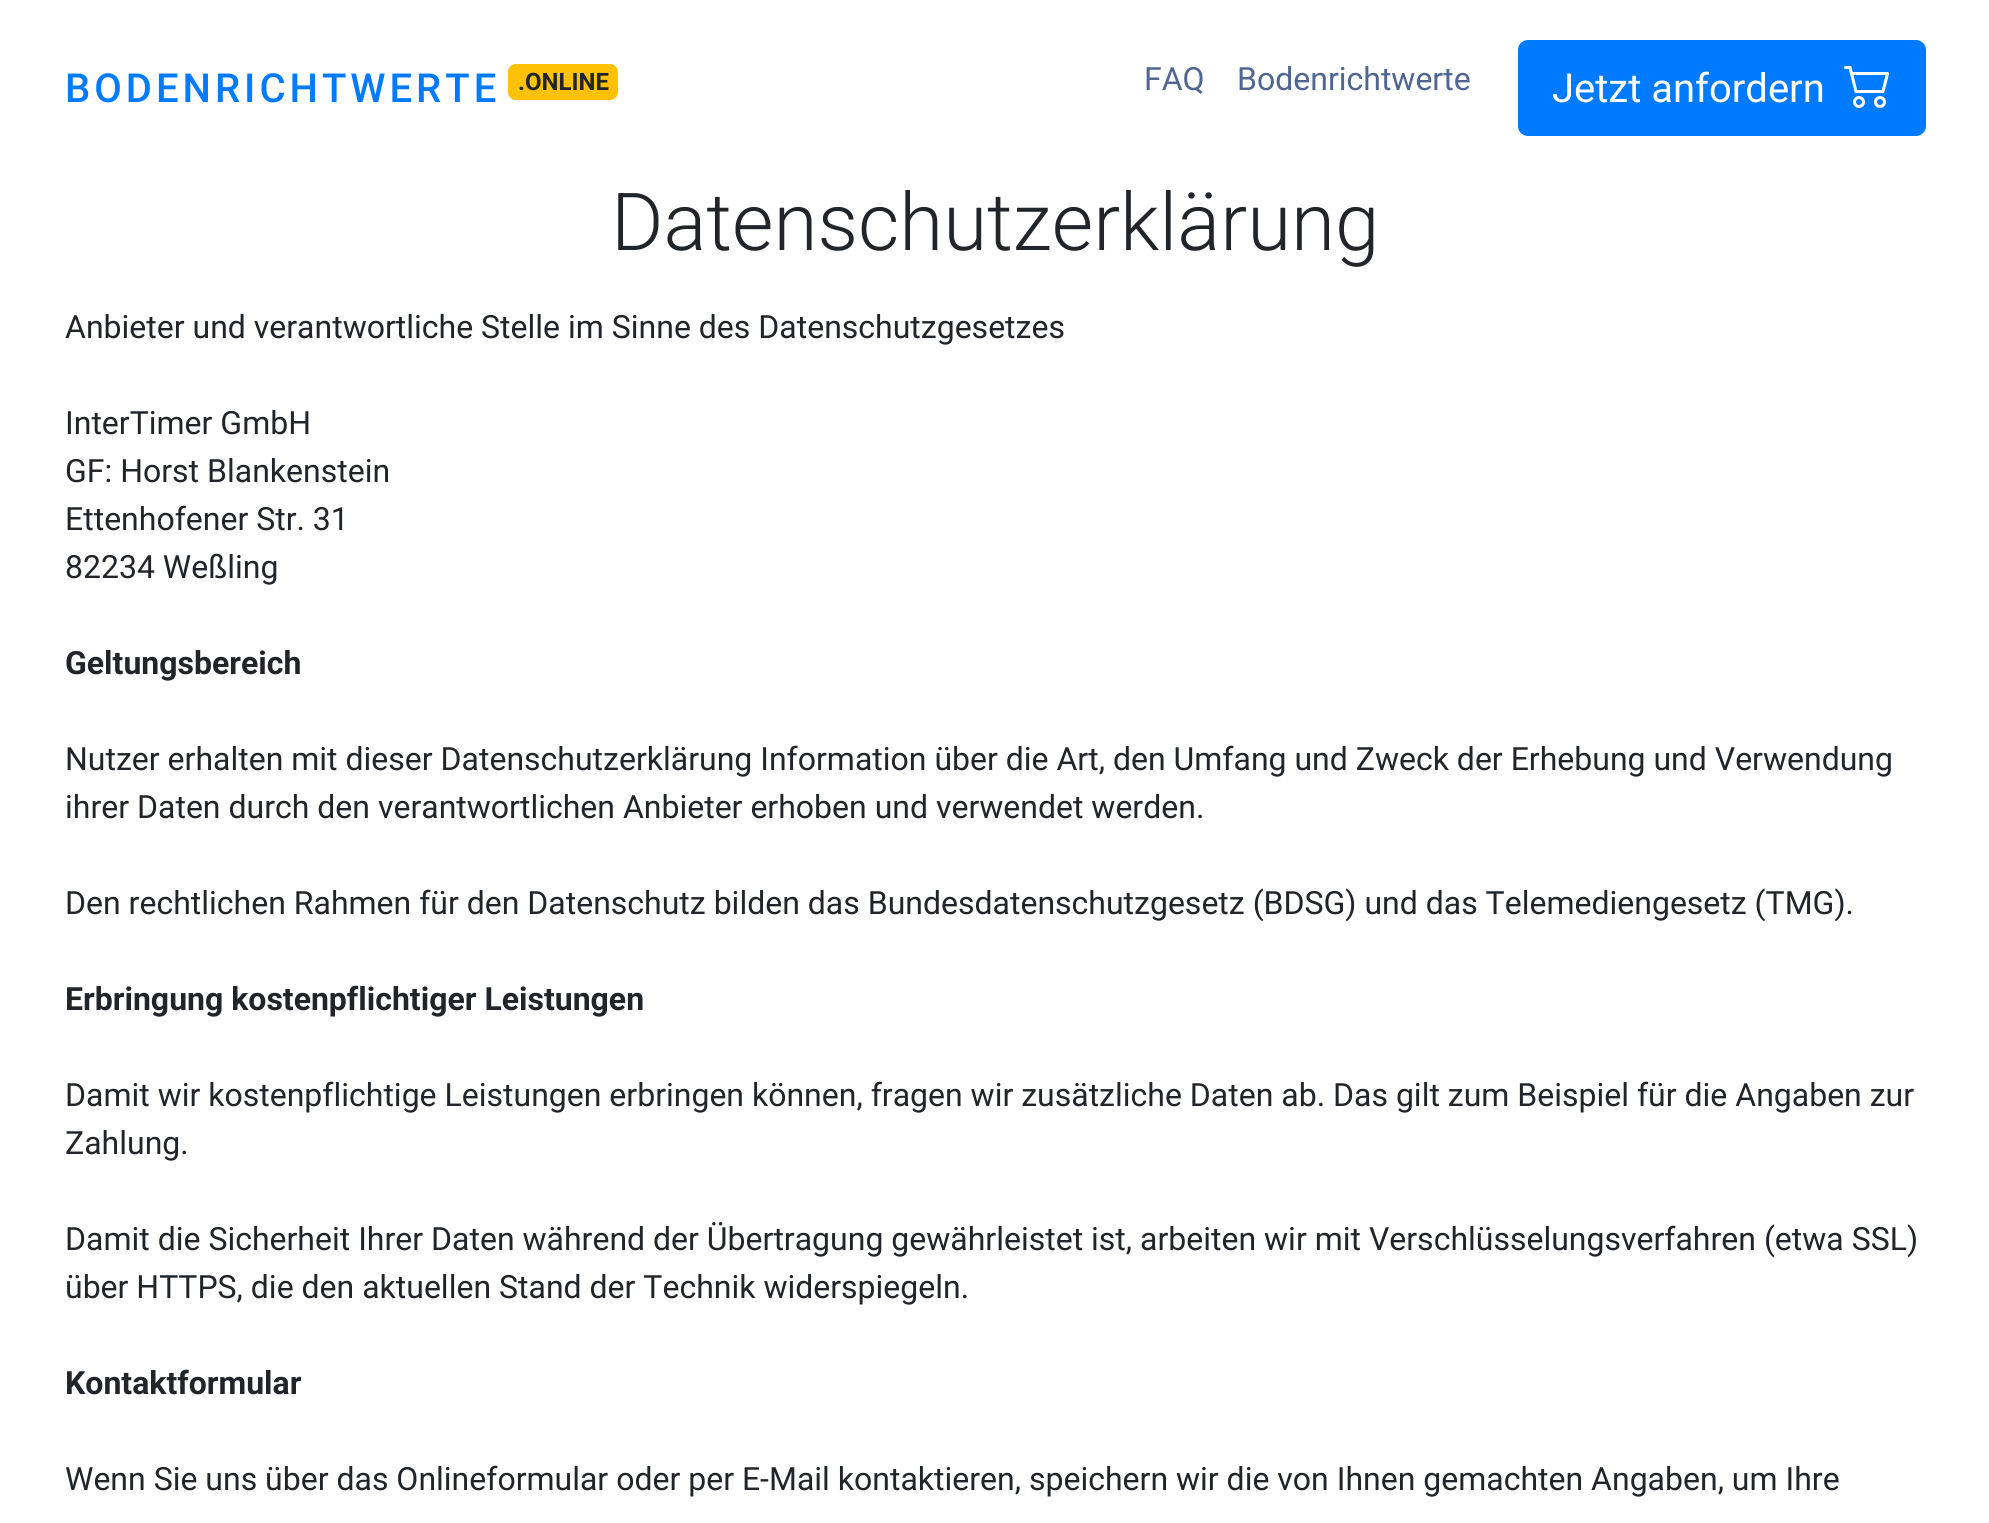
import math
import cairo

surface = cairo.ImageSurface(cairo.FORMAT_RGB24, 1989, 1523)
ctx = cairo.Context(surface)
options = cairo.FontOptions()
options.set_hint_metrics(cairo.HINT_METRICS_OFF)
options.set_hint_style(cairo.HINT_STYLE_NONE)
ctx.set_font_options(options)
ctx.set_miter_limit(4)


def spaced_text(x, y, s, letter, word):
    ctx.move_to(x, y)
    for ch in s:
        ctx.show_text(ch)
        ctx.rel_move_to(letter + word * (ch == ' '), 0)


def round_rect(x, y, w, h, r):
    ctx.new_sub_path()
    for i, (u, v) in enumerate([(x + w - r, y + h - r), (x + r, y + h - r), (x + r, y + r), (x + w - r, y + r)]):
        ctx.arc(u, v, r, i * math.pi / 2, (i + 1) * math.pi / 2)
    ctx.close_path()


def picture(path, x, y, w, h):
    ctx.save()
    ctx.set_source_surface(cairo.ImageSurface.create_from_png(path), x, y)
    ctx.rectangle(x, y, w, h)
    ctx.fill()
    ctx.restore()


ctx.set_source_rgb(1, 1, 1)
ctx.paint()
ctx.select_font_face("Roboto Medium")
ctx.set_font_size(40)
ctx.set_source_rgb(0, 0.482, 1)
spaced_text(65, 102, "BODENRICHTWERTE", 4, 0)
ctx.set_source_rgb(1, 0.757, 0.027)
round_rect(508, 64, 110, 36, 8)
ctx.fill()
ctx.select_font_face("Roboto", cairo.FONT_SLANT_NORMAL, cairo.FONT_WEIGHT_BOLD)
ctx.set_font_size(24)
ctx.set_source_rgb(0.129, 0.145, 0.161)
ctx.move_to(518, 90)
ctx.show_text(".ONLINE")
ctx.select_font_face("Roboto")
ctx.set_font_size(32)
ctx.set_source_rgb(0.314, 0.4, 0.565)
ctx.move_to(1144, 90)
ctx.show_text("FAQ")
ctx.move_to(1237, 90)
ctx.show_text("Bodenrichtwerte")
ctx.set_source_rgb(0, 0.482, 1)
round_rect(1519, 41, 406, 94, 9)
ctx.fill_preserve()
ctx.stroke()
ctx.set_font_size(40)
ctx.set_source_rgb(1, 1, 1)
ctx.move_to(1552, 102)
ctx.show_text("Jetzt anfordern")
picture("img1.png", 1844, 66, 45, 42)
ctx.select_font_face("Roboto Light")
ctx.set_font_size(80)
ctx.set_source_rgb(0.129, 0.145, 0.161)
ctx.move_to(611, 250)
ctx.show_text("Datenschutzerklärung")
ctx.select_font_face("Roboto")
ctx.set_font_size(32)
ctx.move_to(65, 338)
ctx.show_text("Anbieter und verantwortliche Stelle im Sinne des Datenschutzgesetzes")
ctx.move_to(65, 434)
ctx.show_text("InterTimer GmbH")
ctx.move_to(65, 482)
ctx.show_text("GF: Horst Blankenstein")
ctx.move_to(65, 530)
ctx.show_text("Ettenhofener Str. 31")
ctx.move_to(65, 578)
ctx.show_text("82234 Weßling")
ctx.select_font_face("Roboto", cairo.FONT_SLANT_NORMAL, cairo.FONT_WEIGHT_BOLD)
ctx.move_to(65, 674)
ctx.show_text("Geltungsbereich")
ctx.select_font_face("Roboto")
ctx.move_to(65, 770)
ctx.show_text("Nutzer erhalten mit dieser Datenschutzerklärung Information über die Art, den Umfang und Zweck der Erhebung und Verwendung")
ctx.move_to(65, 818)
ctx.show_text("ihrer Daten durch den verantwortlichen Anbieter erhoben und verwendet werden.")
ctx.move_to(65, 914)
ctx.show_text("Den rechtlichen Rahmen für den Datenschutz bilden das Bundesdatenschutzgesetz (BDSG) und das Telemediengesetz (TMG).")
ctx.select_font_face("Roboto", cairo.FONT_SLANT_NORMAL, cairo.FONT_WEIGHT_BOLD)
ctx.move_to(65, 1010)
ctx.show_text("Erbringung kostenpflichtiger Leistungen")
ctx.select_font_face("Roboto")
ctx.move_to(65, 1106)
ctx.show_text("Damit wir kostenpflichtige Leistungen erbringen können, fragen wir zusätzliche Daten ab. Das gilt zum Beispiel für die Angaben zur")
ctx.move_to(65, 1154)
ctx.show_text("Zahlung.")
ctx.move_to(65, 1250)
ctx.show_text("Damit die Sicherheit Ihrer Daten während der Übertragung gewährleistet ist, arbeiten wir mit Verschlüsselungsverfahren (etwa SSL)")
ctx.move_to(65, 1298)
ctx.show_text("über HTTPS, die den aktuellen Stand der Technik widerspiegeln.")
ctx.select_font_face("Roboto", cairo.FONT_SLANT_NORMAL, cairo.FONT_WEIGHT_BOLD)
ctx.move_to(65, 1394)
ctx.show_text("Kontaktformular")
ctx.select_font_face("Roboto")
ctx.move_to(65, 1490)
ctx.show_text("Wenn Sie uns über das Onlineformular oder per E-Mail kontaktieren, speichern wir die von Ihnen gemachten Angaben, um Ihre")
surface.write_to_png("page.png")
